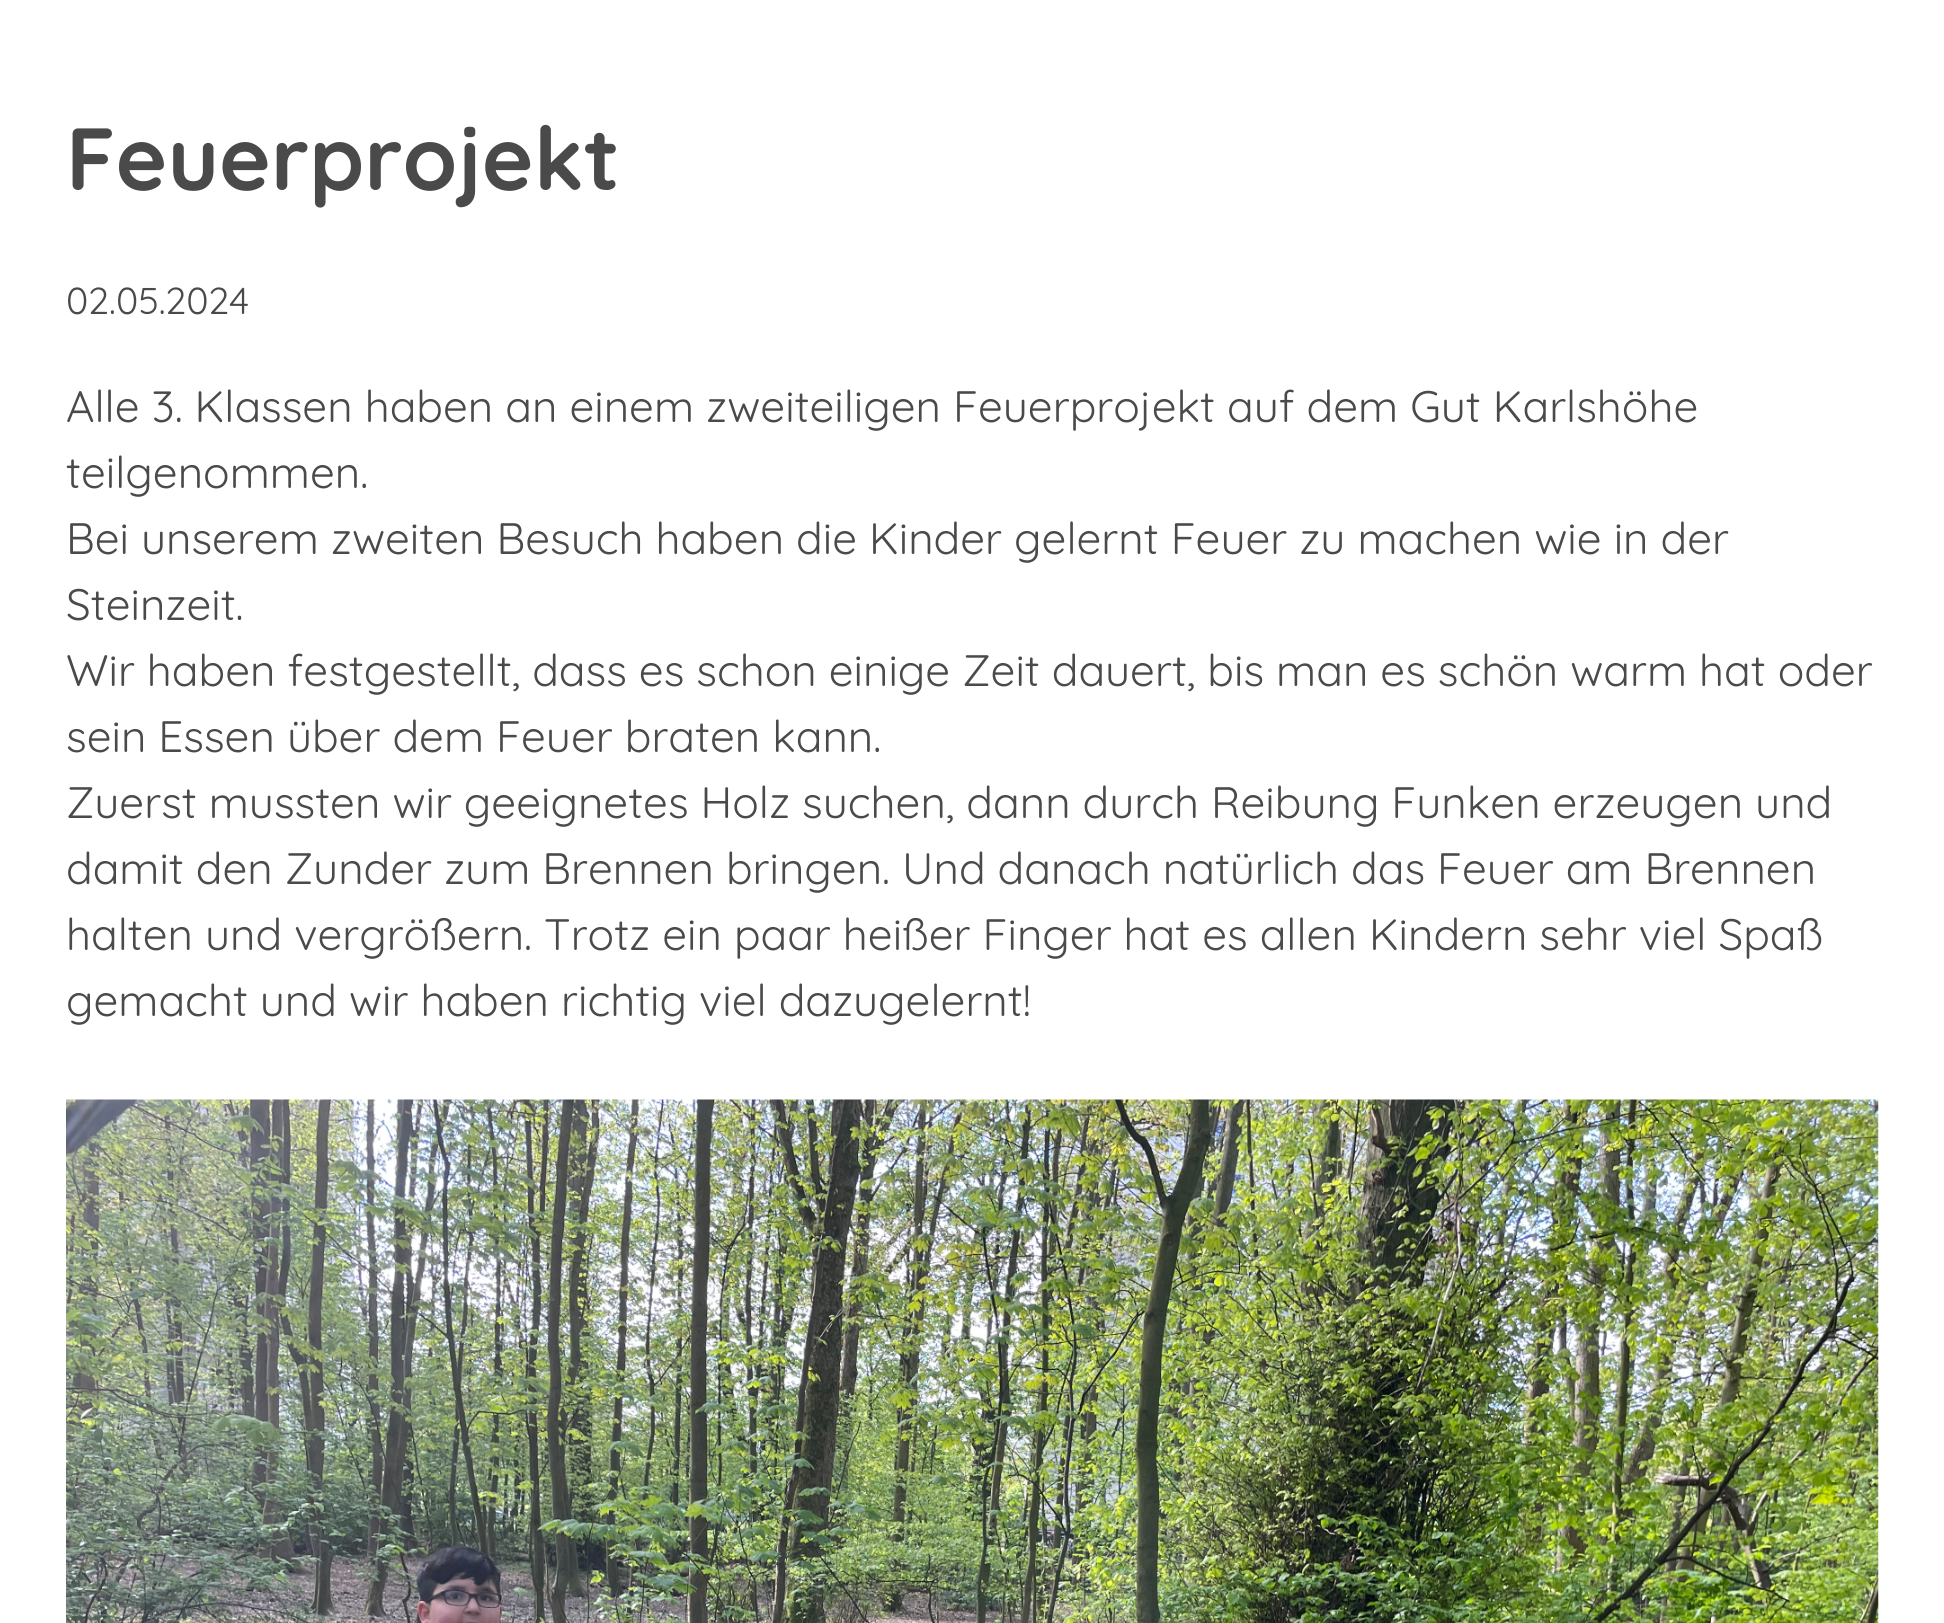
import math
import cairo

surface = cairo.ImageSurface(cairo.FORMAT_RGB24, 1944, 1623)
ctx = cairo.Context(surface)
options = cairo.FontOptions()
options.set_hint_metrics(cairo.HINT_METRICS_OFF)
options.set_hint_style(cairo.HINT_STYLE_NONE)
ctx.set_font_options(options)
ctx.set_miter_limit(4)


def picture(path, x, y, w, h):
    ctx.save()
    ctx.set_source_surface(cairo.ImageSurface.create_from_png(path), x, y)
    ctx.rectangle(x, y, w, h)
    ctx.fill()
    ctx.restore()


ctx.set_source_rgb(1, 1, 1)
ctx.paint()
ctx.select_font_face("Quicksand", cairo.FONT_SLANT_NORMAL, cairo.FONT_WEIGHT_BOLD)
ctx.set_font_size(88)
ctx.set_source_rgb(0.29, 0.29, 0.29)
ctx.move_to(66, 190)
ctx.show_text("Feuerprojekt")
ctx.select_font_face("Quicksand")
ctx.set_font_size(37.5)
ctx.move_to(66, 314)
ctx.show_text("02.05.2024")
ctx.set_font_size(44)
ctx.move_to(66, 422)
ctx.show_text("Alle 3. Klassen haben an einem zweiteiligen Feuerprojekt auf dem Gut Karlshöhe")
ctx.move_to(66, 488)
ctx.show_text("teilgenommen.")
ctx.move_to(66, 554)
ctx.show_text("Bei unserem zweiten Besuch haben die Kinder gelernt Feuer zu machen wie in der")
ctx.move_to(66, 620)
ctx.show_text("Steinzeit.")
ctx.move_to(66, 686)
ctx.show_text("Wir haben festgestellt, dass es schon einige Zeit dauert, bis man es schön warm hat oder")
ctx.move_to(66, 752)
ctx.show_text("sein Essen über dem Feuer braten kann.")
ctx.move_to(66, 818)
ctx.show_text("Zuerst mussten wir geeignetes Holz suchen, dann durch Reibung Funken erzeugen und")
ctx.move_to(66, 884)
ctx.show_text("damit den Zunder zum Brennen bringen. Und danach natürlich das Feuer am Brennen")
ctx.move_to(66, 950)
ctx.show_text("halten und vergrößern. Trotz ein paar heißer Finger hat es allen Kindern sehr viel Spaß")
ctx.move_to(66, 1016)
ctx.show_text("gemacht und wir haben richtig viel dazugelernt!")
picture("img1.png", 66, 1099, 1813, 524)
surface.write_to_png("page.png")
